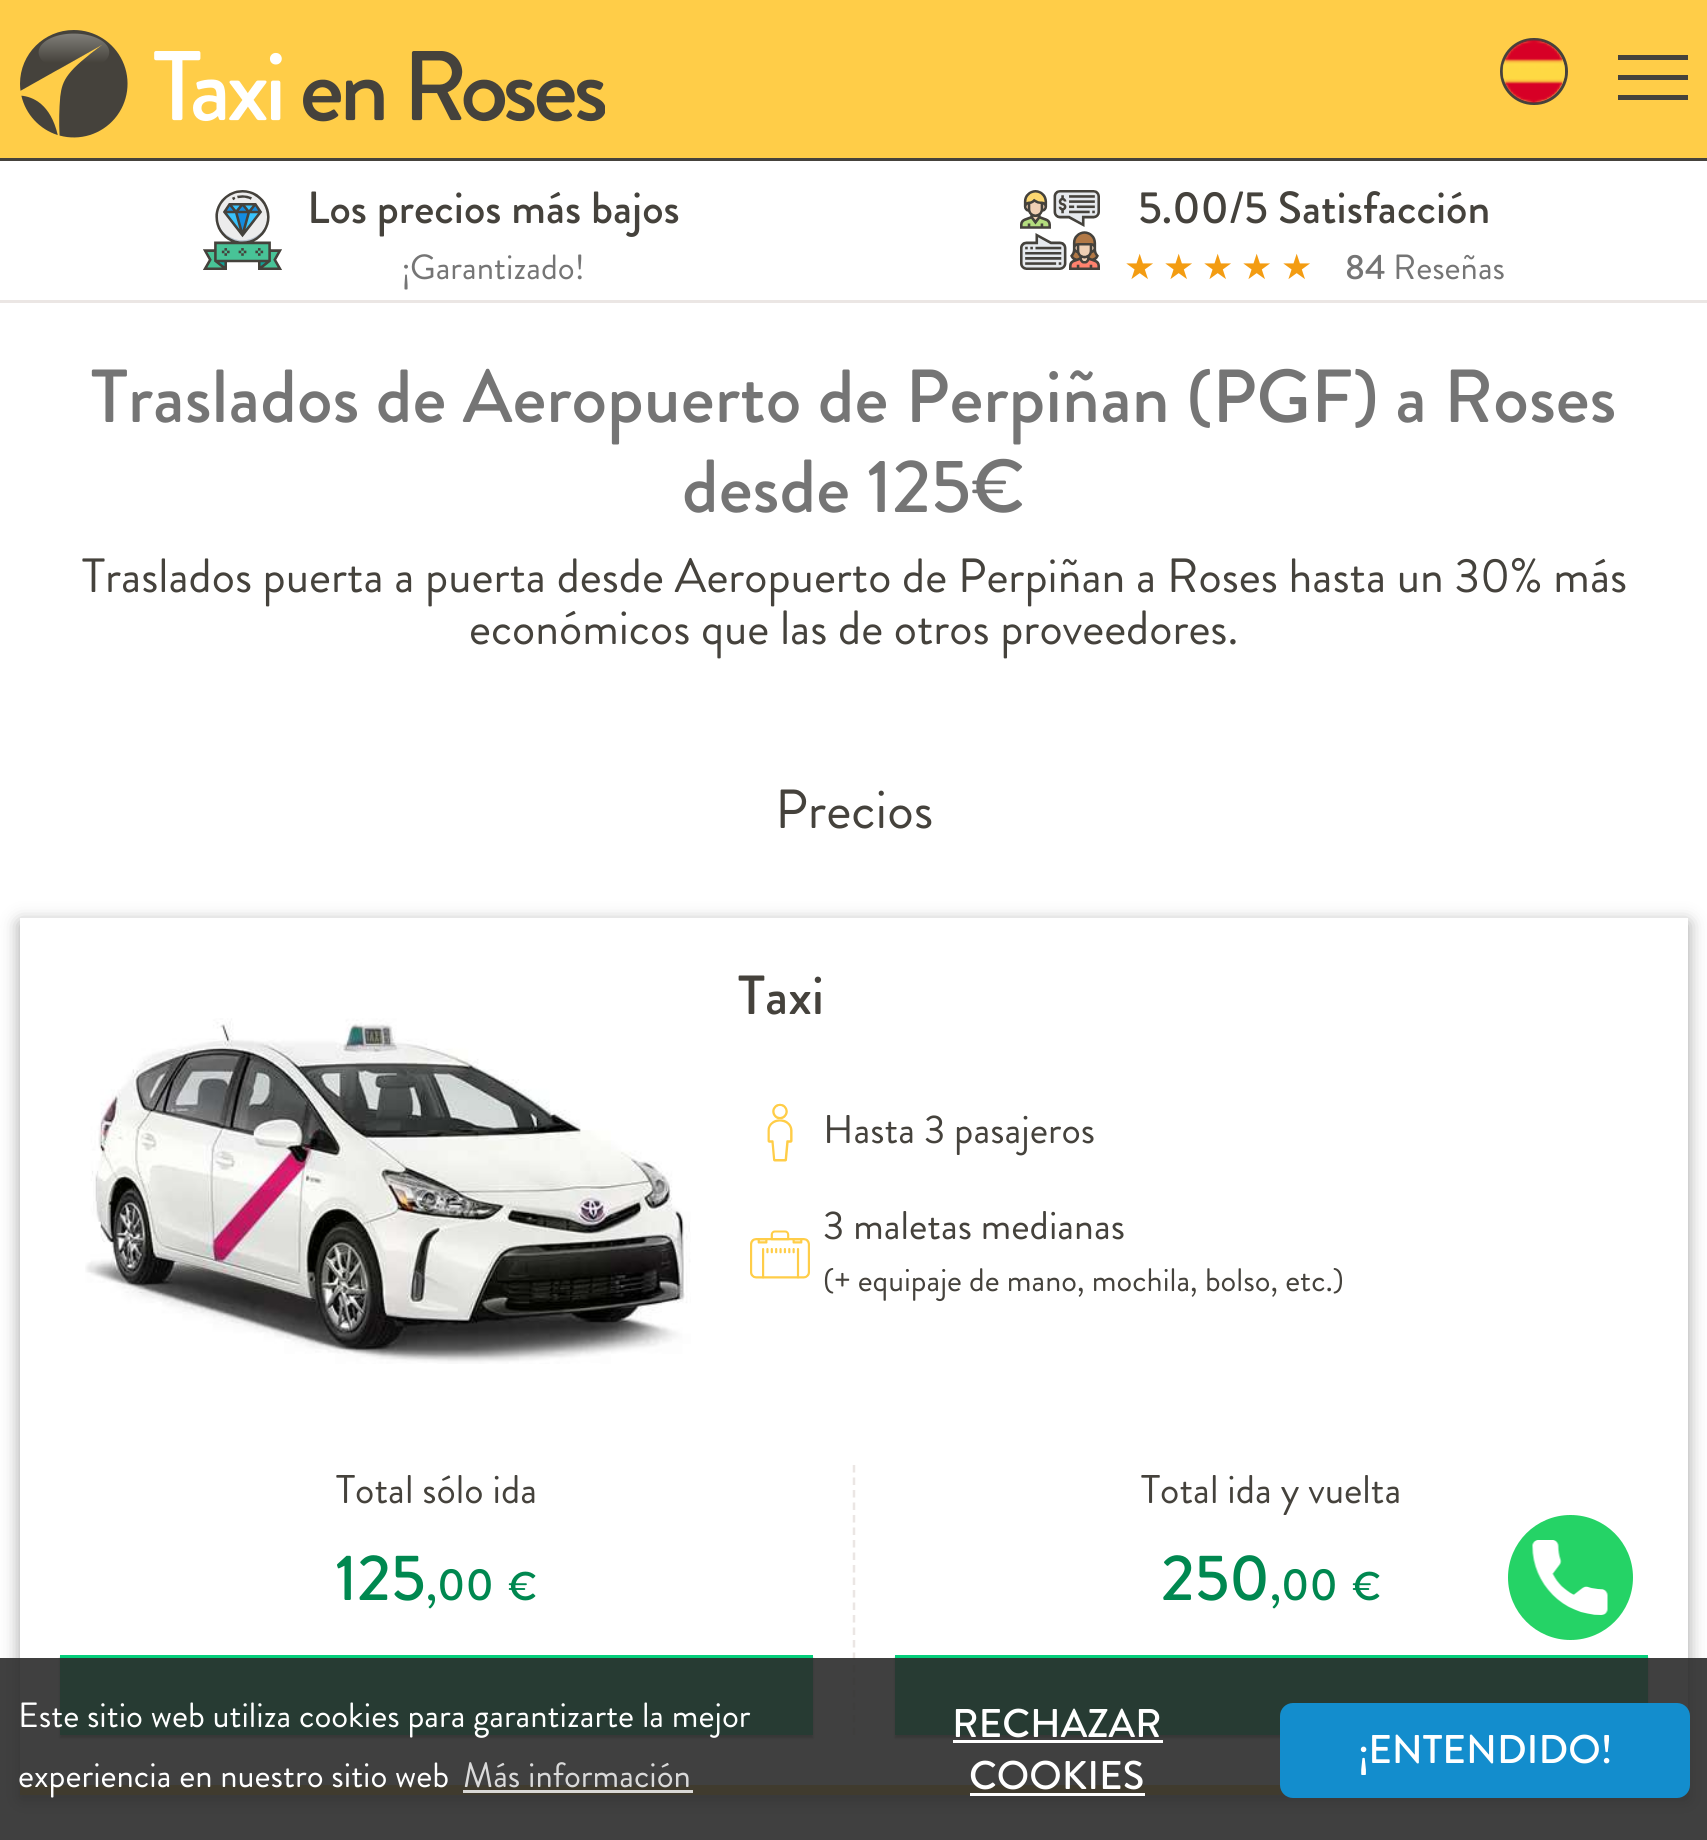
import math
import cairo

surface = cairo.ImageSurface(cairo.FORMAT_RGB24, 1707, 1840)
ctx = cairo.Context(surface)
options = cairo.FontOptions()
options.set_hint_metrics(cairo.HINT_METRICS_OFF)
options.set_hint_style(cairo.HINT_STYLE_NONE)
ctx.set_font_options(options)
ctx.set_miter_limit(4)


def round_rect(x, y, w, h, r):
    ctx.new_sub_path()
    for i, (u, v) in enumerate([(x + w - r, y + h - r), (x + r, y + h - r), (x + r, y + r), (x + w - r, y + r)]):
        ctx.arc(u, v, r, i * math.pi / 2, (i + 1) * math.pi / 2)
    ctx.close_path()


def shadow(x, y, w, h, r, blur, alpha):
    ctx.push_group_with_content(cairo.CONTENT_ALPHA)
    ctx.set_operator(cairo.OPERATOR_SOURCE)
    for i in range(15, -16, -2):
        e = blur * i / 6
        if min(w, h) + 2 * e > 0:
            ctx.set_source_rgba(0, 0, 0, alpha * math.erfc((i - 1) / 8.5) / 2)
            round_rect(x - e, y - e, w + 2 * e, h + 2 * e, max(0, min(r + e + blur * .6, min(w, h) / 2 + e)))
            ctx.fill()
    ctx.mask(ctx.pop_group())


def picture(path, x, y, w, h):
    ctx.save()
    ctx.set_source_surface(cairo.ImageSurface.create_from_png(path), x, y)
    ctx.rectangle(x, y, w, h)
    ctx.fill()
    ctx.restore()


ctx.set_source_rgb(1, 1, 1)
ctx.paint()
ctx.set_source_rgb(1, 0.804, 0.282)
ctx.rectangle(0, 0, 1707, 158)
ctx.fill()
ctx.set_source_rgb(0.271, 0.259, 0.235)
ctx.rectangle(0, 158, 1707, 3)
ctx.fill()
picture("img1.png", 20, 30, 585, 108)
round_rect(1501.5, 39.5, 65, 64, 32)
ctx.set_line_width(3)
ctx.stroke()
picture("img2.png", 1502, 39, 63, 64)
ctx.rectangle(1618, 75, 70, 5)
ctx.fill()
ctx.rectangle(1618, 55, 70, 5)
ctx.fill()
ctx.rectangle(1618, 95, 70, 5)
ctx.fill()
ctx.set_source_rgb(0.918, 0.902, 0.894)
ctx.rectangle(0, 300, 1707, 3)
ctx.fill()
picture("img3.png", 203, 190, 79, 80)
ctx.select_font_face("Brandon Grotesque Medium")
ctx.set_font_size(45)
ctx.set_source_rgb(0.271, 0.259, 0.235)
ctx.move_to(307, 223)
ctx.show_text("Los precios más bajos")
ctx.select_font_face("Brandon Grotesque")
ctx.set_font_size(35)
ctx.set_source_rgb(0.459, 0.459, 0.459)
ctx.move_to(402, 279)
ctx.show_text("¡Garantizado!")
picture("img4.png", 1020, 190, 80, 80)
ctx.select_font_face("Brandon Grotesque Medium")
ctx.set_font_size(45)
ctx.set_source_rgb(0.271, 0.259, 0.235)
ctx.move_to(1138, 223)
ctx.show_text("5.00/5 Satisfacción")
ctx.select_font_face("DejaVu Sans")
ctx.set_font_size(35)
ctx.set_source_rgb(0.953, 0.612, 0.071)
ctx.move_to(1124, 279)
ctx.show_text("★")
ctx.move_to(1163, 279)
ctx.show_text("★")
ctx.move_to(1202, 279)
ctx.show_text("★")
ctx.move_to(1241, 279)
ctx.show_text("★")
ctx.move_to(1281, 279)
ctx.show_text("★")
ctx.select_font_face("Brandon Grotesque Medium")
ctx.set_source_rgb(0.459, 0.459, 0.459)
ctx.move_to(1345, 279)
ctx.show_text("84")
ctx.select_font_face("Brandon Grotesque")
ctx.move_to(1393, 279)
ctx.show_text("Reseñas")
ctx.select_font_face("Brandon Grotesque Medium")
ctx.set_font_size(75)
ctx.move_to(91, 422)
ctx.show_text("Traslados de Aeropuerto de Perpiñan (PGF) a Roses")
ctx.move_to(682, 512)
ctx.show_text("desde 125€")
ctx.select_font_face("Brandon Grotesque")
ctx.set_font_size(48)
ctx.set_source_rgb(0.271, 0.259, 0.235)
ctx.move_to(82, 592)
ctx.show_text("Traslados puerta a puerta desde Aeropuerto de Perpiñan a Roses hasta un 30% más")
ctx.move_to(469, 644)
ctx.show_text("económicos que las de otros proveedores.")
ctx.set_font_size(55)
ctx.move_to(775, 828)
ctx.show_text("Precios")
ctx.set_source_rgb(0.114, 0.114, 0.106)
shadow(20, 923, 1668, 877, 0, 9, 0.42)
ctx.set_source_rgb(1, 1, 1)
ctx.rectangle(20, 918, 1668, 867)
ctx.fill()
ctx.set_source_rgb(1, 0.804, 0.282)
ctx.rectangle(20, 1785, 1668, 10)
ctx.fill()
picture("img5.png", 85, 1018, 606, 346)
ctx.select_font_face("Brandon Grotesque Medium")
ctx.set_source_rgb(0.271, 0.259, 0.235)
ctx.move_to(738, 1014)
ctx.show_text("Taxi")
picture("img6.png", 767, 1103, 26, 59)
ctx.select_font_face("Brandon Grotesque")
ctx.set_font_size(40)
ctx.move_to(823, 1143)
ctx.show_text("Hasta 3 pasajeros")
picture("img7.png", 750, 1230, 60, 49)
ctx.move_to(823, 1239)
ctx.show_text("3 maletas medianas")
ctx.set_font_size(32.5)
ctx.move_to(823, 1291)
ctx.show_text("(+ equipaje de mano, mochila, bolso, etc.)")
ctx.set_font_size(40)
ctx.move_to(336, 1503)
ctx.show_text("Total sólo ida")
ctx.select_font_face("Brandon Grotesque Medium")
ctx.set_font_size(65)
ctx.set_source_rgb(0, 0.533, 0.314)
ctx.move_to(335, 1600)
ctx.show_text("125")
ctx.set_font_size(45)
ctx.move_to(426, 1600)
ctx.show_text(",00")
ctx.set_font_size(40)
ctx.move_to(508, 1600)
ctx.show_text("€")
ctx.set_source_rgb(0.271, 0.259, 0.235)
shadow(60, 1658, 753, 80, 0, 1, 0.48)
ctx.set_source_rgb(0.02, 0.808, 0.482)
ctx.rectangle(60, 1655, 753, 80)
ctx.fill()
ctx.new_path()
ctx.move_to(854, 1465)
ctx.line_to(854, 1735)
ctx.set_source_rgb(0.918, 0.902, 0.894)
ctx.set_line_width(2.5)
ctx.set_dash([7.5, 5])
ctx.stroke()
ctx.select_font_face("Brandon Grotesque")
ctx.set_source_rgb(0.271, 0.259, 0.235)
ctx.move_to(1141, 1503)
ctx.show_text("Total ida y vuelta")
ctx.select_font_face("Brandon Grotesque Medium")
ctx.set_font_size(65)
ctx.set_source_rgb(0, 0.533, 0.314)
ctx.move_to(1161, 1600)
ctx.show_text("250")
ctx.set_font_size(45)
ctx.move_to(1270, 1600)
ctx.show_text(",00")
ctx.set_font_size(40)
ctx.move_to(1352, 1600)
ctx.show_text("€")
ctx.set_source_rgb(0.271, 0.259, 0.235)
shadow(895, 1658, 753, 80, 0, 1, 0.48)
ctx.set_source_rgb(0.02, 0.808, 0.482)
ctx.rectangle(895, 1655, 753, 80)
ctx.fill()
ctx.set_source_rgb(0.145, 0.827, 0.4)
ctx.arc(1570.5, 1577.5, 62.5, 0, 2 * math.pi)
ctx.fill()
picture("img8.png", 1532, 1540, 76, 75)
ctx.set_source_rgba(0.173, 0.173, 0.173, 0.9)
ctx.rectangle(0, 1658, 1707, 182)
ctx.fill()
ctx.select_font_face("Brandon Grotesque")
ctx.set_font_size(35)
ctx.set_source_rgb(1, 1, 1)
ctx.move_to(18, 1727)
ctx.show_text("Este sitio web utiliza cookies para garantizarte la mejor")
ctx.move_to(18, 1787)
ctx.show_text("experiencia en nuestro sitio web")
ctx.set_source_rgb(0.851, 0.851, 0.851)
ctx.move_to(463, 1787)
ctx.show_text("Más información")
ctx.set_source_rgb(0.851, 0.847, 0.835)
ctx.rectangle(463, 1790, 230, 3)
ctx.fill()
ctx.select_font_face("Brandon Grotesque Medium")
ctx.set_font_size(40)
ctx.set_source_rgb(1, 1, 1)
ctx.move_to(952, 1737)
ctx.show_text("RECHAZAR")
ctx.rectangle(953, 1740, 210, 3)
ctx.fill()
ctx.move_to(969, 1789)
ctx.show_text("COOKIES")
ctx.rectangle(970, 1793, 175, 3)
ctx.fill()
ctx.set_source_rgb(0.075, 0.553, 0.804)
round_rect(1280, 1703, 410, 95, 13)
ctx.fill()
ctx.set_source_rgb(1, 1, 1)
ctx.move_to(1359, 1763)
ctx.show_text("¡ENTENDIDO!")
surface.write_to_png("page.png")
